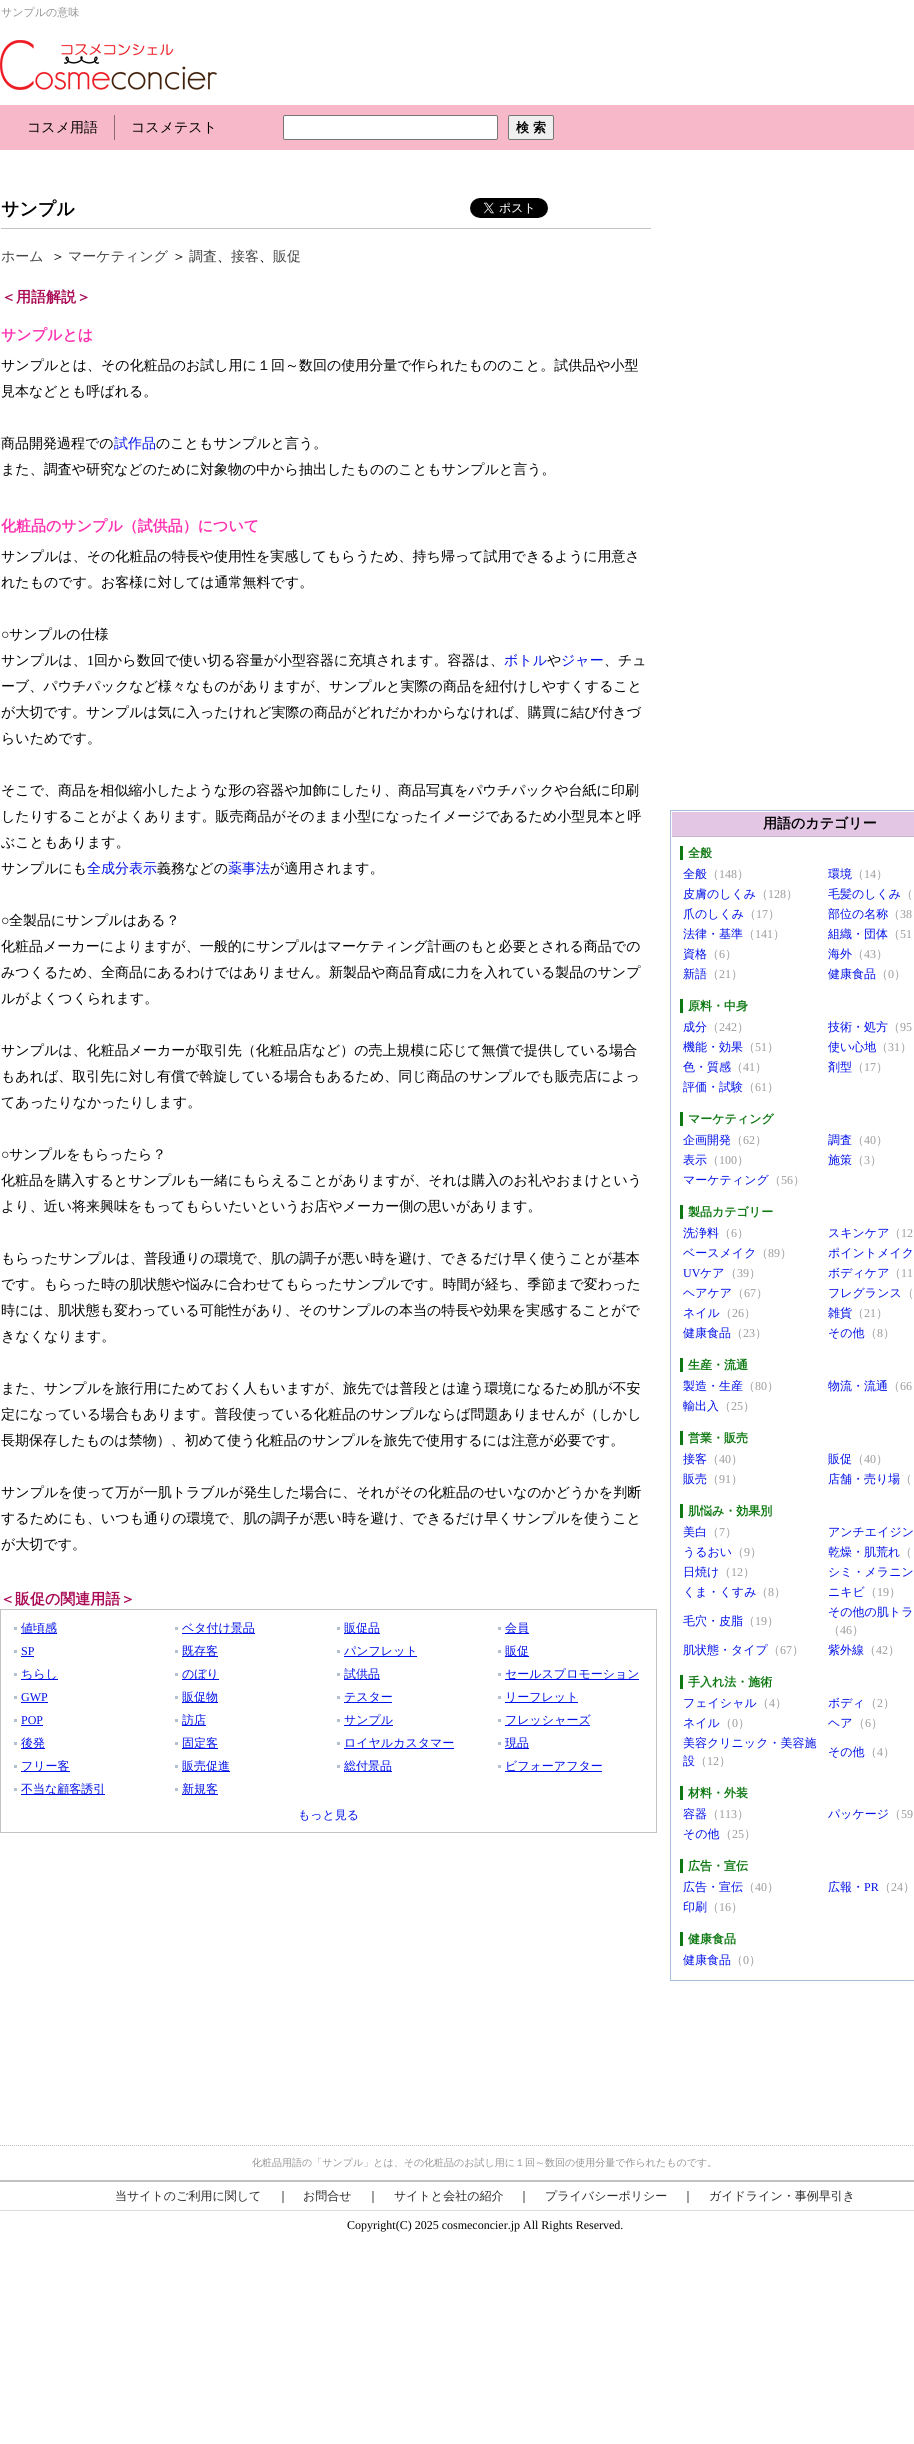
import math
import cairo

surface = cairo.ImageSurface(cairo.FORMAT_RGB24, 914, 2444)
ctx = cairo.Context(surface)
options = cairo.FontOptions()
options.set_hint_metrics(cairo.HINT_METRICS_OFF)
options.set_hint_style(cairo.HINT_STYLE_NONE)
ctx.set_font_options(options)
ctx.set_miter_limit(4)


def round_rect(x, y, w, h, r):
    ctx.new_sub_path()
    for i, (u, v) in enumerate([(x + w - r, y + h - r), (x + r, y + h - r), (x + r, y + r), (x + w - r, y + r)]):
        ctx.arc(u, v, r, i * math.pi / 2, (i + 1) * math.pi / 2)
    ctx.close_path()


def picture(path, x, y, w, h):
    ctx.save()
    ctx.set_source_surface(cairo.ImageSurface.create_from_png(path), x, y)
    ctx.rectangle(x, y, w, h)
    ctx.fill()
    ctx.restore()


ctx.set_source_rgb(1, 1, 1)
ctx.paint()
ctx.select_font_face("WenQuanYi Zen Hei Medium")
ctx.set_font_size(11)
ctx.set_source_rgb(0.576, 0.576, 0.576)
ctx.move_to(1, 16)
ctx.show_text("サンプルの意味")
picture("img1.png", 0, 40, 217, 50)
ctx.set_source_rgb(0.965, 0.722, 0.792)
ctx.rectangle(0, 105, 914, 45)
ctx.fill()
ctx.set_source_rgb(0.553, 0.416, 0.463)
ctx.rectangle(114, 115, 1, 25)
ctx.fill()
ctx.set_font_size(14)
ctx.set_source_rgb(0, 0, 0)
ctx.move_to(27, 132)
ctx.show_text("コスメ用語")
ctx.move_to(131, 132)
ctx.show_text("コスメテスト")
ctx.set_source_rgb(1, 1, 1)
round_rect(283.5, 115.5, 214, 24, 1.5)
ctx.fill_preserve()
ctx.set_source_rgb(0.463, 0.463, 0.463)
ctx.set_line_width(1)
ctx.stroke()
ctx.set_source_rgb(0.937, 0.937, 0.937)
round_rect(508.5, 115.5, 45, 24, 1.5)
ctx.fill_preserve()
ctx.set_source_rgb(0.463, 0.463, 0.463)
ctx.stroke()
ctx.select_font_face("WenQuanYi Zen Hei", cairo.FONT_SLANT_NORMAL, cairo.FONT_WEIGHT_BOLD)
ctx.set_font_size(13)
ctx.set_source_rgb(0, 0, 0)
ctx.move_to(516, 132)
ctx.show_text("検 索")
ctx.set_source_rgb(0.765, 0.765, 0.765)
ctx.rectangle(1, 228, 650, 1)
ctx.fill()
ctx.set_font_size(18)
ctx.set_source_rgb(0, 0, 0)
ctx.move_to(1, 215)
ctx.show_text("サンプル")
picture("img2.png", 470, 198, 78, 20)
ctx.select_font_face("WenQuanYi Zen Hei Medium")
ctx.set_font_size(14)
ctx.set_source_rgb(0.267, 0.267, 0.267)
ctx.move_to(1, 261)
ctx.show_text("ホーム")
ctx.set_source_rgb(0, 0, 0)
ctx.move_to(51, 261)
ctx.show_text("＞")
ctx.set_source_rgb(0.267, 0.267, 0.267)
ctx.move_to(68, 261)
ctx.show_text("マーケティング")
ctx.set_source_rgb(0, 0, 0)
ctx.move_to(172, 261)
ctx.show_text("＞")
ctx.set_source_rgb(0.267, 0.267, 0.267)
ctx.move_to(189, 261)
ctx.show_text("調査")
ctx.set_source_rgb(0, 0, 0)
ctx.move_to(217, 261)
ctx.show_text("、")
ctx.set_source_rgb(0.267, 0.267, 0.267)
ctx.move_to(231, 261)
ctx.show_text("接客")
ctx.set_source_rgb(0, 0, 0)
ctx.move_to(259, 261)
ctx.show_text("、")
ctx.set_source_rgb(0.267, 0.267, 0.267)
ctx.move_to(273, 261)
ctx.show_text("販促")
ctx.select_font_face("WenQuanYi Zen Hei", cairo.FONT_SLANT_NORMAL, cairo.FONT_WEIGHT_BOLD)
ctx.set_font_size(15)
ctx.set_source_rgb(0.663, 0.043, 0.333)
ctx.move_to(1, 302)
ctx.show_text("＜用語解説＞")
ctx.set_source_rgb(1, 0.196, 0.694)
ctx.move_to(1, 340)
ctx.show_text("サンプルとは")
ctx.select_font_face("WenQuanYi Zen Hei Medium")
ctx.set_font_size(14)
ctx.set_source_rgb(0, 0, 0)
ctx.move_to(1, 370)
ctx.show_text("サンプルとは、その化粧品のお試し用に１回～数回の使用分量で作られたもののこと。試供品や小型")
ctx.move_to(1, 396)
ctx.show_text("見本などとも呼ばれる。")
ctx.move_to(1, 448)
ctx.show_text("商品開発過程での")
ctx.set_source_rgb(0, 0.063, 0.91)
ctx.move_to(114, 448)
ctx.show_text("試作品")
ctx.set_source_rgb(0, 0, 0)
ctx.move_to(156, 448)
ctx.show_text("のこともサンプルと言う。")
ctx.move_to(1, 474)
ctx.show_text("また、調査や研究などのために対象物の中から抽出したもののこともサンプルと言う。")
ctx.select_font_face("WenQuanYi Zen Hei", cairo.FONT_SLANT_NORMAL, cairo.FONT_WEIGHT_BOLD)
ctx.set_font_size(15)
ctx.set_source_rgb(1, 0.196, 0.694)
ctx.move_to(1, 531)
ctx.show_text("化粧品のサンプル（試供品）について")
ctx.select_font_face("WenQuanYi Zen Hei Medium")
ctx.set_font_size(14)
ctx.set_source_rgb(0, 0, 0)
ctx.move_to(1, 561)
ctx.show_text("サンプルは、その化粧品の特長や使用性を実感してもらうため、持ち帰って試用できるように用意さ")
ctx.move_to(1, 587)
ctx.show_text("れたものです。お客様に対しては通常無料です。")
ctx.select_font_face("Liberation Serif")
ctx.move_to(1, 639)
ctx.show_text("○")
ctx.select_font_face("WenQuanYi Zen Hei Medium")
ctx.move_to(9, 639)
ctx.show_text("サンプルの仕様")
ctx.move_to(1, 665)
ctx.show_text("サンプルは、")
ctx.select_font_face("Liberation Serif")
ctx.move_to(87, 665)
ctx.show_text("1")
ctx.select_font_face("WenQuanYi Zen Hei Medium")
ctx.move_to(94, 665)
ctx.show_text("回から数回で使い切る容量が小型容器に充填されます。容器は、")
ctx.set_source_rgb(0, 0.063, 0.91)
ctx.move_to(504, 665)
ctx.show_text("ボトル")
ctx.set_source_rgb(0, 0, 0)
ctx.move_to(547, 665)
ctx.show_text("や")
ctx.set_source_rgb(0, 0.063, 0.91)
ctx.move_to(561, 665)
ctx.show_text("ジャー")
ctx.set_source_rgb(0, 0, 0)
ctx.move_to(604, 665)
ctx.show_text("、チュ")
ctx.move_to(1, 691)
ctx.show_text("ーブ、パウチパックなど様々なものがありますが、サンプルと実際の商品を紐付けしやすくすること")
ctx.move_to(1, 717)
ctx.show_text("が大切です。サンプルは気に入ったけれど実際の商品がどれだかわからなければ、購買に結び付きづ")
ctx.move_to(1, 743)
ctx.show_text("らいためです。")
ctx.move_to(1, 795)
ctx.show_text("そこで、商品を相似縮小したような形の容器や加飾にしたり、商品写真をパウチパックや台紙に印刷")
ctx.move_to(1, 821)
ctx.show_text("したりすることがよくあります。販売商品がそのまま小型になったイメージであるため小型見本と呼")
ctx.move_to(1, 847)
ctx.show_text("ぶこともあります。")
ctx.move_to(1, 873)
ctx.show_text("サンプルにも")
ctx.set_source_rgb(0, 0.063, 0.91)
ctx.move_to(87, 873)
ctx.show_text("全成分表示")
ctx.set_source_rgb(0, 0, 0)
ctx.move_to(157, 873)
ctx.show_text("義務などの")
ctx.set_source_rgb(0, 0.063, 0.91)
ctx.move_to(228, 873)
ctx.show_text("薬事法")
ctx.set_source_rgb(0, 0, 0)
ctx.move_to(270, 873)
ctx.show_text("が適用されます。")
ctx.select_font_face("Liberation Serif")
ctx.move_to(1, 925)
ctx.show_text("○")
ctx.select_font_face("WenQuanYi Zen Hei Medium")
ctx.move_to(9, 925)
ctx.show_text("全製品にサンプルはある？")
ctx.move_to(1, 951)
ctx.show_text("化粧品メーカーによりますが、一般的にサンプルはマーケティング計画のもと必要とされる商品での")
ctx.move_to(1, 977)
ctx.show_text("みつくるため、全商品にあるわけではありません。新製品や商品育成に力を入れている製品のサンプ")
ctx.move_to(1, 1003)
ctx.show_text("ルがよくつくられます。")
ctx.move_to(1, 1055)
ctx.show_text("サンプルは、化粧品メーカーが取引先（化粧品店など）の売上規模に応じて無償で提供している場合")
ctx.move_to(1, 1081)
ctx.show_text("もあれば、取引先に対し有償で斡旋している場合もあるため、同じ商品のサンプルでも販売店によっ")
ctx.move_to(1, 1107)
ctx.show_text("てあったりなかったりします。")
ctx.select_font_face("Liberation Serif")
ctx.move_to(1, 1159)
ctx.show_text("○")
ctx.select_font_face("WenQuanYi Zen Hei Medium")
ctx.move_to(9, 1159)
ctx.show_text("サンプルをもらったら？")
ctx.move_to(1, 1185)
ctx.show_text("化粧品を購入するとサンプルも一緒にもらえることがありますが、それは購入のお礼やおまけという")
ctx.move_to(1, 1211)
ctx.show_text("より、近い将来興味をもってもらいたいというお店やメーカー側の思いがあります。")
ctx.move_to(1, 1263)
ctx.show_text("もらったサンプルは、普段通りの環境で、肌の調子が悪い時を避け、できるだけ早く使うことが基本")
ctx.move_to(1, 1289)
ctx.show_text("です。もらった時の肌状態や悩みに合わせてもらったサンプルです。時間が経ち、季節まで変わった")
ctx.move_to(1, 1315)
ctx.show_text("時には、肌状態も変わっている可能性があり、そのサンプルの本当の特長や効果を実感することがで")
ctx.move_to(1, 1341)
ctx.show_text("きなくなります。")
ctx.move_to(1, 1393)
ctx.show_text("また、サンプルを旅行用にためておく人もいますが、旅先では普段とは違う環境になるため肌が不安")
ctx.move_to(1, 1419)
ctx.show_text("定になっている場合もあります。普段使っている化粧品のサンプルならば問題ありませんが（しかし")
ctx.move_to(1, 1445)
ctx.show_text("長期保存したものは禁物）、初めて使う化粧品のサンプルを旅先で使用するには注意が必要です。")
ctx.move_to(1, 1497)
ctx.show_text("サンプルを使って万が一肌トラブルが発生した場合に、それがその化粧品のせいなのかどうかを判断")
ctx.move_to(1, 1523)
ctx.show_text("するためにも、いつも通りの環境で、肌の調子が悪い時を避け、できるだけ早くサンプルを使うこと")
ctx.move_to(1, 1549)
ctx.show_text("が大切です。")
ctx.select_font_face("WenQuanYi Zen Hei", cairo.FONT_SLANT_NORMAL, cairo.FONT_WEIGHT_BOLD)
ctx.set_font_size(15)
ctx.set_source_rgb(0.663, 0.043, 0.333)
ctx.move_to(0, 1604)
ctx.show_text("＜販促の関連用語＞")
ctx.rectangle(0.5, 1609.5, 656, 223)
ctx.set_source_rgb(0.765, 0.765, 0.765)
ctx.stroke()
ctx.set_source_rgb(0.698, 0.753, 0.816)
ctx.rectangle(14, 1627, 3, 3)
ctx.fill()
ctx.set_source_rgb(0, 0.063, 0.91)
ctx.rectangle(21, 1633, 36, 1)
ctx.fill()
ctx.select_font_face("WenQuanYi Zen Hei Medium")
ctx.set_font_size(12)
ctx.move_to(21, 1632)
ctx.show_text("値頃感")
ctx.set_source_rgb(0.698, 0.753, 0.816)
ctx.rectangle(175, 1627, 3, 3)
ctx.fill()
ctx.set_source_rgb(0, 0.063, 0.91)
ctx.rectangle(182, 1633, 73, 1)
ctx.fill()
ctx.move_to(182, 1632)
ctx.show_text("ベタ付け景品")
ctx.set_source_rgb(0.698, 0.753, 0.816)
ctx.rectangle(337, 1627, 3, 3)
ctx.fill()
ctx.set_source_rgb(0, 0.063, 0.91)
ctx.rectangle(344, 1633, 36, 1)
ctx.fill()
ctx.move_to(344, 1632)
ctx.show_text("販促品")
ctx.set_source_rgb(0.698, 0.753, 0.816)
ctx.rectangle(498, 1627, 3, 3)
ctx.fill()
ctx.set_source_rgb(0, 0.063, 0.91)
ctx.rectangle(505, 1633, 24, 1)
ctx.fill()
ctx.move_to(505, 1632)
ctx.show_text("会員")
ctx.set_source_rgb(0.698, 0.753, 0.816)
ctx.rectangle(14, 1650, 3, 3)
ctx.fill()
ctx.select_font_face("Liberation Serif")
ctx.set_source_rgb(0, 0.063, 0.91)
ctx.move_to(21, 1655)
ctx.show_text("SP")
ctx.rectangle(21, 1656, 13, 1)
ctx.fill()
ctx.set_source_rgb(0.698, 0.753, 0.816)
ctx.rectangle(175, 1650, 3, 3)
ctx.fill()
ctx.set_source_rgb(0, 0.063, 0.91)
ctx.rectangle(182, 1656, 36, 1)
ctx.fill()
ctx.select_font_face("WenQuanYi Zen Hei Medium")
ctx.move_to(182, 1655)
ctx.show_text("既存客")
ctx.set_source_rgb(0.698, 0.753, 0.816)
ctx.rectangle(337, 1650, 3, 3)
ctx.fill()
ctx.set_source_rgb(0, 0.063, 0.91)
ctx.rectangle(344, 1656, 73, 1)
ctx.fill()
ctx.move_to(344, 1655)
ctx.show_text("パンフレット")
ctx.set_source_rgb(0.698, 0.753, 0.816)
ctx.rectangle(498, 1650, 3, 3)
ctx.fill()
ctx.set_source_rgb(0, 0.063, 0.91)
ctx.rectangle(505, 1656, 24, 1)
ctx.fill()
ctx.move_to(505, 1655)
ctx.show_text("販促")
ctx.set_source_rgb(0.698, 0.753, 0.816)
ctx.rectangle(14, 1673, 3, 3)
ctx.fill()
ctx.set_source_rgb(0, 0.063, 0.91)
ctx.rectangle(21, 1679, 37, 1)
ctx.fill()
ctx.move_to(21, 1678)
ctx.show_text("ちらし")
ctx.set_source_rgb(0.698, 0.753, 0.816)
ctx.rectangle(175, 1673, 3, 3)
ctx.fill()
ctx.set_source_rgb(0, 0.063, 0.91)
ctx.rectangle(182, 1679, 37, 1)
ctx.fill()
ctx.move_to(182, 1678)
ctx.show_text("のぼり")
ctx.set_source_rgb(0.698, 0.753, 0.816)
ctx.rectangle(337, 1673, 3, 3)
ctx.fill()
ctx.set_source_rgb(0, 0.063, 0.91)
ctx.rectangle(344, 1679, 36, 1)
ctx.fill()
ctx.move_to(344, 1678)
ctx.show_text("試供品")
ctx.set_source_rgb(0.698, 0.753, 0.816)
ctx.rectangle(498, 1673, 3, 3)
ctx.fill()
ctx.set_source_rgb(0, 0.063, 0.91)
ctx.rectangle(505, 1679, 134, 1)
ctx.fill()
ctx.move_to(505, 1678)
ctx.show_text("セールスプロモーション")
ctx.set_source_rgb(0.698, 0.753, 0.816)
ctx.rectangle(14, 1696, 3, 3)
ctx.fill()
ctx.select_font_face("Liberation Serif")
ctx.set_source_rgb(0, 0.063, 0.91)
ctx.move_to(21, 1701)
ctx.show_text("GWP")
ctx.rectangle(21, 1702, 27, 1)
ctx.fill()
ctx.set_source_rgb(0.698, 0.753, 0.816)
ctx.rectangle(175, 1696, 3, 3)
ctx.fill()
ctx.set_source_rgb(0, 0.063, 0.91)
ctx.rectangle(182, 1702, 36, 1)
ctx.fill()
ctx.select_font_face("WenQuanYi Zen Hei Medium")
ctx.move_to(182, 1701)
ctx.show_text("販促物")
ctx.set_source_rgb(0.698, 0.753, 0.816)
ctx.rectangle(337, 1696, 3, 3)
ctx.fill()
ctx.set_source_rgb(0, 0.063, 0.91)
ctx.rectangle(344, 1702, 48, 1)
ctx.fill()
ctx.move_to(344, 1701)
ctx.show_text("テスター")
ctx.set_source_rgb(0.698, 0.753, 0.816)
ctx.rectangle(498, 1696, 3, 3)
ctx.fill()
ctx.set_source_rgb(0, 0.063, 0.91)
ctx.rectangle(505, 1702, 73, 1)
ctx.fill()
ctx.move_to(505, 1701)
ctx.show_text("リーフレット")
ctx.set_source_rgb(0.698, 0.753, 0.816)
ctx.rectangle(14, 1719, 3, 3)
ctx.fill()
ctx.select_font_face("Liberation Serif")
ctx.set_source_rgb(0, 0.063, 0.91)
ctx.move_to(21, 1724)
ctx.show_text("POP")
ctx.rectangle(21, 1725, 22, 1)
ctx.fill()
ctx.set_source_rgb(0.698, 0.753, 0.816)
ctx.rectangle(175, 1719, 3, 3)
ctx.fill()
ctx.set_source_rgb(0, 0.063, 0.91)
ctx.rectangle(182, 1725, 24, 1)
ctx.fill()
ctx.select_font_face("WenQuanYi Zen Hei Medium")
ctx.move_to(182, 1724)
ctx.show_text("訪店")
ctx.set_source_rgb(0.698, 0.753, 0.816)
ctx.rectangle(337, 1719, 3, 3)
ctx.fill()
ctx.set_source_rgb(0, 0.063, 0.91)
ctx.rectangle(344, 1725, 49, 1)
ctx.fill()
ctx.move_to(344, 1724)
ctx.show_text("サンプル")
ctx.set_source_rgb(0.698, 0.753, 0.816)
ctx.rectangle(498, 1719, 3, 3)
ctx.fill()
ctx.set_source_rgb(0, 0.063, 0.91)
ctx.rectangle(505, 1725, 85, 1)
ctx.fill()
ctx.move_to(505, 1724)
ctx.show_text("フレッシャーズ")
ctx.set_source_rgb(0.698, 0.753, 0.816)
ctx.rectangle(14, 1742, 3, 3)
ctx.fill()
ctx.set_source_rgb(0, 0.063, 0.91)
ctx.rectangle(21, 1748, 24, 1)
ctx.fill()
ctx.move_to(21, 1747)
ctx.show_text("後発")
ctx.set_source_rgb(0.698, 0.753, 0.816)
ctx.rectangle(175, 1742, 3, 3)
ctx.fill()
ctx.set_source_rgb(0, 0.063, 0.91)
ctx.rectangle(182, 1748, 36, 1)
ctx.fill()
ctx.move_to(182, 1747)
ctx.show_text("固定客")
ctx.set_source_rgb(0.698, 0.753, 0.816)
ctx.rectangle(337, 1742, 3, 3)
ctx.fill()
ctx.set_source_rgb(0, 0.063, 0.91)
ctx.rectangle(344, 1748, 110, 1)
ctx.fill()
ctx.move_to(344, 1747)
ctx.show_text("ロイヤルカスタマー")
ctx.set_source_rgb(0.698, 0.753, 0.816)
ctx.rectangle(498, 1742, 3, 3)
ctx.fill()
ctx.set_source_rgb(0, 0.063, 0.91)
ctx.rectangle(505, 1748, 24, 1)
ctx.fill()
ctx.move_to(505, 1747)
ctx.show_text("現品")
ctx.set_source_rgb(0.698, 0.753, 0.816)
ctx.rectangle(14, 1765, 3, 3)
ctx.fill()
ctx.set_source_rgb(0, 0.063, 0.91)
ctx.rectangle(21, 1771, 49, 1)
ctx.fill()
ctx.move_to(21, 1770)
ctx.show_text("フリー客")
ctx.set_source_rgb(0.698, 0.753, 0.816)
ctx.rectangle(175, 1765, 3, 3)
ctx.fill()
ctx.set_source_rgb(0, 0.063, 0.91)
ctx.rectangle(182, 1771, 48, 1)
ctx.fill()
ctx.move_to(182, 1770)
ctx.show_text("販売促進")
ctx.set_source_rgb(0.698, 0.753, 0.816)
ctx.rectangle(337, 1765, 3, 3)
ctx.fill()
ctx.set_source_rgb(0, 0.063, 0.91)
ctx.rectangle(344, 1771, 48, 1)
ctx.fill()
ctx.move_to(344, 1770)
ctx.show_text("総付景品")
ctx.set_source_rgb(0.698, 0.753, 0.816)
ctx.rectangle(498, 1765, 3, 3)
ctx.fill()
ctx.set_source_rgb(0, 0.063, 0.91)
ctx.rectangle(505, 1771, 97, 1)
ctx.fill()
ctx.move_to(505, 1770)
ctx.show_text("ビフォーアフター")
ctx.set_source_rgb(0.698, 0.753, 0.816)
ctx.rectangle(14, 1788, 3, 3)
ctx.fill()
ctx.set_source_rgb(0, 0.063, 0.91)
ctx.rectangle(21, 1794, 84, 1)
ctx.fill()
ctx.move_to(21, 1793)
ctx.show_text("不当な顧客誘引")
ctx.set_source_rgb(0.698, 0.753, 0.816)
ctx.rectangle(175, 1788, 3, 3)
ctx.fill()
ctx.set_source_rgb(0, 0.063, 0.91)
ctx.rectangle(182, 1794, 36, 1)
ctx.fill()
ctx.move_to(182, 1793)
ctx.show_text("新規客")
ctx.move_to(298, 1819)
ctx.show_text("もっと見る")
ctx.rectangle(670.5, 810.5, 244, 1170)
ctx.set_source_rgb(0.659, 0.749, 0.851)
ctx.stroke()
ctx.set_source_rgb(0.886, 0.776, 0.894)
ctx.rectangle(672, 812, 242, 24)
ctx.fill()
ctx.set_source_rgb(0.804, 0.698, 0.812)
ctx.rectangle(672, 836, 242, 1)
ctx.fill()
ctx.select_font_face("WenQuanYi Zen Hei", cairo.FONT_SLANT_NORMAL, cairo.FONT_WEIGHT_BOLD)
ctx.set_font_size(14)
ctx.set_source_rgb(0, 0, 0)
ctx.move_to(763, 828)
ctx.show_text("用語のカテゴリー")
ctx.set_source_rgb(0.055, 0.475, 0.071)
ctx.rectangle(680, 846, 3, 14)
ctx.fill()
ctx.set_font_size(12)
ctx.move_to(688, 857)
ctx.show_text("全般")
ctx.select_font_face("WenQuanYi Zen Hei Medium")
ctx.set_source_rgb(0, 0.063, 0.91)
ctx.move_to(683, 878)
ctx.show_text("全般")
ctx.set_source_rgb(0.604, 0.608, 0.604)
ctx.move_to(707, 878)
ctx.show_text("（")
ctx.select_font_face("Liberation Serif")
ctx.move_to(719, 878)
ctx.show_text("148")
ctx.select_font_face("WenQuanYi Zen Hei Medium")
ctx.move_to(737, 878)
ctx.show_text("）")
ctx.set_source_rgb(0, 0.063, 0.91)
ctx.move_to(828, 878)
ctx.show_text("環境")
ctx.set_source_rgb(0.604, 0.608, 0.604)
ctx.move_to(852, 878)
ctx.show_text("（")
ctx.select_font_face("Liberation Serif")
ctx.move_to(864, 878)
ctx.show_text("14")
ctx.select_font_face("WenQuanYi Zen Hei Medium")
ctx.move_to(876, 878)
ctx.show_text("）")
ctx.set_source_rgb(0, 0.063, 0.91)
ctx.move_to(683, 898)
ctx.show_text("皮膚のしくみ")
ctx.set_source_rgb(0.604, 0.608, 0.604)
ctx.move_to(756, 898)
ctx.show_text("（")
ctx.select_font_face("Liberation Serif")
ctx.move_to(768, 898)
ctx.show_text("128")
ctx.select_font_face("WenQuanYi Zen Hei Medium")
ctx.move_to(786, 898)
ctx.show_text("）")
ctx.set_source_rgb(0, 0.063, 0.91)
ctx.move_to(828, 898)
ctx.show_text("毛髪のしくみ")
ctx.set_source_rgb(0.604, 0.608, 0.604)
ctx.move_to(901, 898)
ctx.show_text("（")
ctx.set_source_rgb(0, 0.063, 0.91)
ctx.move_to(683, 918)
ctx.show_text("爪のしくみ")
ctx.set_source_rgb(0.604, 0.608, 0.604)
ctx.move_to(744, 918)
ctx.show_text("（")
ctx.select_font_face("Liberation Serif")
ctx.move_to(756, 918)
ctx.show_text("17")
ctx.select_font_face("WenQuanYi Zen Hei Medium")
ctx.move_to(768, 918)
ctx.show_text("）")
ctx.set_source_rgb(0, 0.063, 0.91)
ctx.move_to(828, 918)
ctx.show_text("部位の名称")
ctx.set_source_rgb(0.604, 0.608, 0.604)
ctx.move_to(888, 918)
ctx.show_text("（")
ctx.select_font_face("Liberation Serif")
ctx.move_to(900, 918)
ctx.show_text("38")
ctx.select_font_face("WenQuanYi Zen Hei Medium")
ctx.set_source_rgb(0, 0.063, 0.91)
ctx.move_to(683, 938)
ctx.show_text("法律・基準")
ctx.set_source_rgb(0.604, 0.608, 0.604)
ctx.move_to(743, 938)
ctx.show_text("（")
ctx.select_font_face("Liberation Serif")
ctx.move_to(755, 938)
ctx.show_text("141")
ctx.select_font_face("WenQuanYi Zen Hei Medium")
ctx.move_to(773, 938)
ctx.show_text("）")
ctx.set_source_rgb(0, 0.063, 0.91)
ctx.move_to(828, 938)
ctx.show_text("組織・団体")
ctx.set_source_rgb(0.604, 0.608, 0.604)
ctx.move_to(888, 938)
ctx.show_text("（")
ctx.select_font_face("Liberation Serif")
ctx.move_to(900, 938)
ctx.show_text("51")
ctx.select_font_face("WenQuanYi Zen Hei Medium")
ctx.set_source_rgb(0, 0.063, 0.91)
ctx.move_to(683, 958)
ctx.show_text("資格")
ctx.set_source_rgb(0.604, 0.608, 0.604)
ctx.move_to(707, 958)
ctx.show_text("（")
ctx.select_font_face("Liberation Serif")
ctx.move_to(719, 958)
ctx.show_text("6")
ctx.select_font_face("WenQuanYi Zen Hei Medium")
ctx.move_to(725, 958)
ctx.show_text("）")
ctx.set_source_rgb(0, 0.063, 0.91)
ctx.move_to(828, 958)
ctx.show_text("海外")
ctx.set_source_rgb(0.604, 0.608, 0.604)
ctx.move_to(852, 958)
ctx.show_text("（")
ctx.select_font_face("Liberation Serif")
ctx.move_to(864, 958)
ctx.show_text("43")
ctx.select_font_face("WenQuanYi Zen Hei Medium")
ctx.move_to(876, 958)
ctx.show_text("）")
ctx.set_source_rgb(0, 0.063, 0.91)
ctx.move_to(683, 978)
ctx.show_text("新語")
ctx.set_source_rgb(0.604, 0.608, 0.604)
ctx.move_to(707, 978)
ctx.show_text("（")
ctx.select_font_face("Liberation Serif")
ctx.move_to(719, 978)
ctx.show_text("21")
ctx.select_font_face("WenQuanYi Zen Hei Medium")
ctx.move_to(731, 978)
ctx.show_text("）")
ctx.set_source_rgb(0, 0.063, 0.91)
ctx.move_to(828, 978)
ctx.show_text("健康食品")
ctx.set_source_rgb(0.604, 0.608, 0.604)
ctx.move_to(876, 978)
ctx.show_text("（")
ctx.select_font_face("Liberation Serif")
ctx.move_to(888, 978)
ctx.show_text("0")
ctx.select_font_face("WenQuanYi Zen Hei Medium")
ctx.move_to(894, 978)
ctx.show_text("）")
ctx.set_source_rgb(0.055, 0.475, 0.071)
ctx.rectangle(680, 999, 3, 14)
ctx.fill()
ctx.select_font_face("WenQuanYi Zen Hei", cairo.FONT_SLANT_NORMAL, cairo.FONT_WEIGHT_BOLD)
ctx.move_to(688, 1010)
ctx.show_text("原料・中身")
ctx.select_font_face("WenQuanYi Zen Hei Medium")
ctx.set_source_rgb(0, 0.063, 0.91)
ctx.move_to(683, 1031)
ctx.show_text("成分")
ctx.set_source_rgb(0.604, 0.608, 0.604)
ctx.move_to(707, 1031)
ctx.show_text("（")
ctx.select_font_face("Liberation Serif")
ctx.move_to(719, 1031)
ctx.show_text("242")
ctx.select_font_face("WenQuanYi Zen Hei Medium")
ctx.move_to(737, 1031)
ctx.show_text("）")
ctx.set_source_rgb(0, 0.063, 0.91)
ctx.move_to(828, 1031)
ctx.show_text("技術・処方")
ctx.set_source_rgb(0.604, 0.608, 0.604)
ctx.move_to(888, 1031)
ctx.show_text("（")
ctx.select_font_face("Liberation Serif")
ctx.move_to(900, 1031)
ctx.show_text("95")
ctx.select_font_face("WenQuanYi Zen Hei Medium")
ctx.set_source_rgb(0, 0.063, 0.91)
ctx.move_to(683, 1051)
ctx.show_text("機能・効果")
ctx.set_source_rgb(0.604, 0.608, 0.604)
ctx.move_to(743, 1051)
ctx.show_text("（")
ctx.select_font_face("Liberation Serif")
ctx.move_to(755, 1051)
ctx.show_text("51")
ctx.select_font_face("WenQuanYi Zen Hei Medium")
ctx.move_to(767, 1051)
ctx.show_text("）")
ctx.set_source_rgb(0, 0.063, 0.91)
ctx.move_to(828, 1051)
ctx.show_text("使い心地")
ctx.set_source_rgb(0.604, 0.608, 0.604)
ctx.move_to(876, 1051)
ctx.show_text("（")
ctx.select_font_face("Liberation Serif")
ctx.move_to(888, 1051)
ctx.show_text("31")
ctx.select_font_face("WenQuanYi Zen Hei Medium")
ctx.move_to(900, 1051)
ctx.show_text("）")
ctx.set_source_rgb(0, 0.063, 0.91)
ctx.move_to(683, 1071)
ctx.show_text("色・質感")
ctx.set_source_rgb(0.604, 0.608, 0.604)
ctx.move_to(731, 1071)
ctx.show_text("（")
ctx.select_font_face("Liberation Serif")
ctx.move_to(743, 1071)
ctx.show_text("41")
ctx.select_font_face("WenQuanYi Zen Hei Medium")
ctx.move_to(755, 1071)
ctx.show_text("）")
ctx.set_source_rgb(0, 0.063, 0.91)
ctx.move_to(828, 1071)
ctx.show_text("剤型")
ctx.set_source_rgb(0.604, 0.608, 0.604)
ctx.move_to(852, 1071)
ctx.show_text("（")
ctx.select_font_face("Liberation Serif")
ctx.move_to(864, 1071)
ctx.show_text("17")
ctx.select_font_face("WenQuanYi Zen Hei Medium")
ctx.move_to(876, 1071)
ctx.show_text("）")
ctx.set_source_rgb(0, 0.063, 0.91)
ctx.move_to(683, 1091)
ctx.show_text("評価・試験")
ctx.set_source_rgb(0.604, 0.608, 0.604)
ctx.move_to(743, 1091)
ctx.show_text("（")
ctx.select_font_face("Liberation Serif")
ctx.move_to(755, 1091)
ctx.show_text("61")
ctx.select_font_face("WenQuanYi Zen Hei Medium")
ctx.move_to(767, 1091)
ctx.show_text("）")
ctx.set_source_rgb(0.055, 0.475, 0.071)
ctx.rectangle(680, 1112, 3, 14)
ctx.fill()
ctx.select_font_face("WenQuanYi Zen Hei", cairo.FONT_SLANT_NORMAL, cairo.FONT_WEIGHT_BOLD)
ctx.move_to(688, 1123)
ctx.show_text("マーケティング")
ctx.select_font_face("WenQuanYi Zen Hei Medium")
ctx.set_source_rgb(0, 0.063, 0.91)
ctx.move_to(683, 1144)
ctx.show_text("企画開発")
ctx.set_source_rgb(0.604, 0.608, 0.604)
ctx.move_to(731, 1144)
ctx.show_text("（")
ctx.select_font_face("Liberation Serif")
ctx.move_to(743, 1144)
ctx.show_text("62")
ctx.select_font_face("WenQuanYi Zen Hei Medium")
ctx.move_to(755, 1144)
ctx.show_text("）")
ctx.set_source_rgb(0, 0.063, 0.91)
ctx.move_to(828, 1144)
ctx.show_text("調査")
ctx.set_source_rgb(0.604, 0.608, 0.604)
ctx.move_to(852, 1144)
ctx.show_text("（")
ctx.select_font_face("Liberation Serif")
ctx.move_to(864, 1144)
ctx.show_text("40")
ctx.select_font_face("WenQuanYi Zen Hei Medium")
ctx.move_to(876, 1144)
ctx.show_text("）")
ctx.set_source_rgb(0, 0.063, 0.91)
ctx.move_to(683, 1164)
ctx.show_text("表示")
ctx.set_source_rgb(0.604, 0.608, 0.604)
ctx.move_to(707, 1164)
ctx.show_text("（")
ctx.select_font_face("Liberation Serif")
ctx.move_to(719, 1164)
ctx.show_text("100")
ctx.select_font_face("WenQuanYi Zen Hei Medium")
ctx.move_to(737, 1164)
ctx.show_text("）")
ctx.set_source_rgb(0, 0.063, 0.91)
ctx.move_to(828, 1164)
ctx.show_text("施策")
ctx.set_source_rgb(0.604, 0.608, 0.604)
ctx.move_to(852, 1164)
ctx.show_text("（")
ctx.select_font_face("Liberation Serif")
ctx.move_to(864, 1164)
ctx.show_text("3")
ctx.select_font_face("WenQuanYi Zen Hei Medium")
ctx.move_to(870, 1164)
ctx.show_text("）")
ctx.set_source_rgb(0, 0.063, 0.91)
ctx.move_to(683, 1184)
ctx.show_text("マーケティング")
ctx.set_source_rgb(0.604, 0.608, 0.604)
ctx.move_to(769, 1184)
ctx.show_text("（")
ctx.select_font_face("Liberation Serif")
ctx.move_to(781, 1184)
ctx.show_text("56")
ctx.select_font_face("WenQuanYi Zen Hei Medium")
ctx.move_to(793, 1184)
ctx.show_text("）")
ctx.set_source_rgb(0.055, 0.475, 0.071)
ctx.rectangle(680, 1205, 3, 14)
ctx.fill()
ctx.select_font_face("WenQuanYi Zen Hei", cairo.FONT_SLANT_NORMAL, cairo.FONT_WEIGHT_BOLD)
ctx.move_to(688, 1216)
ctx.show_text("製品カテゴリー")
ctx.select_font_face("WenQuanYi Zen Hei Medium")
ctx.set_source_rgb(0, 0.063, 0.91)
ctx.move_to(683, 1237)
ctx.show_text("洗浄料")
ctx.set_source_rgb(0.604, 0.608, 0.604)
ctx.move_to(719, 1237)
ctx.show_text("（")
ctx.select_font_face("Liberation Serif")
ctx.move_to(731, 1237)
ctx.show_text("6")
ctx.select_font_face("WenQuanYi Zen Hei Medium")
ctx.move_to(737, 1237)
ctx.show_text("）")
ctx.set_source_rgb(0, 0.063, 0.91)
ctx.move_to(828, 1237)
ctx.show_text("スキンケア")
ctx.set_source_rgb(0.604, 0.608, 0.604)
ctx.move_to(889, 1237)
ctx.show_text("（")
ctx.select_font_face("Liberation Serif")
ctx.move_to(901, 1237)
ctx.show_text("12")
ctx.select_font_face("WenQuanYi Zen Hei Medium")
ctx.set_source_rgb(0, 0.063, 0.91)
ctx.move_to(683, 1257)
ctx.show_text("ベースメイク")
ctx.set_source_rgb(0.604, 0.608, 0.604)
ctx.move_to(756, 1257)
ctx.show_text("（")
ctx.select_font_face("Liberation Serif")
ctx.move_to(768, 1257)
ctx.show_text("89")
ctx.select_font_face("WenQuanYi Zen Hei Medium")
ctx.move_to(780, 1257)
ctx.show_text("）")
ctx.set_source_rgb(0, 0.063, 0.91)
ctx.move_to(828, 1257)
ctx.show_text("ポイントメイク")
ctx.select_font_face("Liberation Serif")
ctx.move_to(683, 1277)
ctx.show_text("UV")
ctx.select_font_face("WenQuanYi Zen Hei Medium")
ctx.move_to(700, 1277)
ctx.show_text("ケア")
ctx.set_source_rgb(0.604, 0.608, 0.604)
ctx.move_to(725, 1277)
ctx.show_text("（")
ctx.select_font_face("Liberation Serif")
ctx.move_to(737, 1277)
ctx.show_text("39")
ctx.select_font_face("WenQuanYi Zen Hei Medium")
ctx.move_to(749, 1277)
ctx.show_text("）")
ctx.set_source_rgb(0, 0.063, 0.91)
ctx.move_to(828, 1277)
ctx.show_text("ボディケア")
ctx.set_source_rgb(0.604, 0.608, 0.604)
ctx.move_to(889, 1277)
ctx.show_text("（")
ctx.select_font_face("Liberation Serif")
ctx.move_to(901, 1277)
ctx.show_text("11")
ctx.select_font_face("WenQuanYi Zen Hei Medium")
ctx.set_source_rgb(0, 0.063, 0.91)
ctx.move_to(683, 1297)
ctx.show_text("ヘアケア")
ctx.set_source_rgb(0.604, 0.608, 0.604)
ctx.move_to(732, 1297)
ctx.show_text("（")
ctx.select_font_face("Liberation Serif")
ctx.move_to(744, 1297)
ctx.show_text("67")
ctx.select_font_face("WenQuanYi Zen Hei Medium")
ctx.move_to(756, 1297)
ctx.show_text("）")
ctx.set_source_rgb(0, 0.063, 0.91)
ctx.move_to(828, 1297)
ctx.show_text("フレグランス")
ctx.set_source_rgb(0.604, 0.608, 0.604)
ctx.move_to(902, 1297)
ctx.show_text("（")
ctx.set_source_rgb(0, 0.063, 0.91)
ctx.move_to(683, 1317)
ctx.show_text("ネイル")
ctx.set_source_rgb(0.604, 0.608, 0.604)
ctx.move_to(720, 1317)
ctx.show_text("（")
ctx.select_font_face("Liberation Serif")
ctx.move_to(732, 1317)
ctx.show_text("26")
ctx.select_font_face("WenQuanYi Zen Hei Medium")
ctx.move_to(744, 1317)
ctx.show_text("）")
ctx.set_source_rgb(0, 0.063, 0.91)
ctx.move_to(828, 1317)
ctx.show_text("雑貨")
ctx.set_source_rgb(0.604, 0.608, 0.604)
ctx.move_to(852, 1317)
ctx.show_text("（")
ctx.select_font_face("Liberation Serif")
ctx.move_to(864, 1317)
ctx.show_text("21")
ctx.select_font_face("WenQuanYi Zen Hei Medium")
ctx.move_to(876, 1317)
ctx.show_text("）")
ctx.set_source_rgb(0, 0.063, 0.91)
ctx.move_to(683, 1337)
ctx.show_text("健康食品")
ctx.set_source_rgb(0.604, 0.608, 0.604)
ctx.move_to(731, 1337)
ctx.show_text("（")
ctx.select_font_face("Liberation Serif")
ctx.move_to(743, 1337)
ctx.show_text("23")
ctx.select_font_face("WenQuanYi Zen Hei Medium")
ctx.move_to(755, 1337)
ctx.show_text("）")
ctx.set_source_rgb(0, 0.063, 0.91)
ctx.move_to(828, 1337)
ctx.show_text("その他")
ctx.set_source_rgb(0.604, 0.608, 0.604)
ctx.move_to(865, 1337)
ctx.show_text("（")
ctx.select_font_face("Liberation Serif")
ctx.move_to(877, 1337)
ctx.show_text("8")
ctx.select_font_face("WenQuanYi Zen Hei Medium")
ctx.move_to(883, 1337)
ctx.show_text("）")
ctx.set_source_rgb(0.055, 0.475, 0.071)
ctx.rectangle(680, 1358, 3, 14)
ctx.fill()
ctx.select_font_face("WenQuanYi Zen Hei", cairo.FONT_SLANT_NORMAL, cairo.FONT_WEIGHT_BOLD)
ctx.move_to(688, 1369)
ctx.show_text("生産・流通")
ctx.select_font_face("WenQuanYi Zen Hei Medium")
ctx.set_source_rgb(0, 0.063, 0.91)
ctx.move_to(683, 1390)
ctx.show_text("製造・生産")
ctx.set_source_rgb(0.604, 0.608, 0.604)
ctx.move_to(743, 1390)
ctx.show_text("（")
ctx.select_font_face("Liberation Serif")
ctx.move_to(755, 1390)
ctx.show_text("80")
ctx.select_font_face("WenQuanYi Zen Hei Medium")
ctx.move_to(767, 1390)
ctx.show_text("）")
ctx.set_source_rgb(0, 0.063, 0.91)
ctx.move_to(828, 1390)
ctx.show_text("物流・流通")
ctx.set_source_rgb(0.604, 0.608, 0.604)
ctx.move_to(888, 1390)
ctx.show_text("（")
ctx.select_font_face("Liberation Serif")
ctx.move_to(900, 1390)
ctx.show_text("66")
ctx.select_font_face("WenQuanYi Zen Hei Medium")
ctx.set_source_rgb(0, 0.063, 0.91)
ctx.move_to(683, 1410)
ctx.show_text("輸出入")
ctx.set_source_rgb(0.604, 0.608, 0.604)
ctx.move_to(719, 1410)
ctx.show_text("（")
ctx.select_font_face("Liberation Serif")
ctx.move_to(731, 1410)
ctx.show_text("25")
ctx.select_font_face("WenQuanYi Zen Hei Medium")
ctx.move_to(743, 1410)
ctx.show_text("）")
ctx.set_source_rgb(0.055, 0.475, 0.071)
ctx.rectangle(680, 1431, 3, 14)
ctx.fill()
ctx.select_font_face("WenQuanYi Zen Hei", cairo.FONT_SLANT_NORMAL, cairo.FONT_WEIGHT_BOLD)
ctx.move_to(688, 1442)
ctx.show_text("営業・販売")
ctx.select_font_face("WenQuanYi Zen Hei Medium")
ctx.set_source_rgb(0, 0.063, 0.91)
ctx.move_to(683, 1463)
ctx.show_text("接客")
ctx.set_source_rgb(0.604, 0.608, 0.604)
ctx.move_to(707, 1463)
ctx.show_text("（")
ctx.select_font_face("Liberation Serif")
ctx.move_to(719, 1463)
ctx.show_text("40")
ctx.select_font_face("WenQuanYi Zen Hei Medium")
ctx.move_to(731, 1463)
ctx.show_text("）")
ctx.set_source_rgb(0, 0.063, 0.91)
ctx.move_to(828, 1463)
ctx.show_text("販促")
ctx.set_source_rgb(0.604, 0.608, 0.604)
ctx.move_to(852, 1463)
ctx.show_text("（")
ctx.select_font_face("Liberation Serif")
ctx.move_to(864, 1463)
ctx.show_text("40")
ctx.select_font_face("WenQuanYi Zen Hei Medium")
ctx.move_to(876, 1463)
ctx.show_text("）")
ctx.set_source_rgb(0, 0.063, 0.91)
ctx.move_to(683, 1483)
ctx.show_text("販売")
ctx.set_source_rgb(0.604, 0.608, 0.604)
ctx.move_to(707, 1483)
ctx.show_text("（")
ctx.select_font_face("Liberation Serif")
ctx.move_to(719, 1483)
ctx.show_text("91")
ctx.select_font_face("WenQuanYi Zen Hei Medium")
ctx.move_to(731, 1483)
ctx.show_text("）")
ctx.set_source_rgb(0, 0.063, 0.91)
ctx.move_to(828, 1483)
ctx.show_text("店舗・売り場")
ctx.set_source_rgb(0.604, 0.608, 0.604)
ctx.move_to(900, 1483)
ctx.show_text("（")
ctx.set_source_rgb(0.055, 0.475, 0.071)
ctx.rectangle(680, 1504, 3, 14)
ctx.fill()
ctx.select_font_face("WenQuanYi Zen Hei", cairo.FONT_SLANT_NORMAL, cairo.FONT_WEIGHT_BOLD)
ctx.move_to(688, 1515)
ctx.show_text("肌悩み・効果別")
ctx.select_font_face("WenQuanYi Zen Hei Medium")
ctx.set_source_rgb(0, 0.063, 0.91)
ctx.move_to(683, 1536)
ctx.show_text("美白")
ctx.set_source_rgb(0.604, 0.608, 0.604)
ctx.move_to(707, 1536)
ctx.show_text("（")
ctx.select_font_face("Liberation Serif")
ctx.move_to(719, 1536)
ctx.show_text("7")
ctx.select_font_face("WenQuanYi Zen Hei Medium")
ctx.move_to(725, 1536)
ctx.show_text("）")
ctx.set_source_rgb(0, 0.063, 0.91)
ctx.move_to(828, 1536)
ctx.show_text("アンチエイジン")
ctx.move_to(683, 1556)
ctx.show_text("うるおい")
ctx.set_source_rgb(0.604, 0.608, 0.604)
ctx.move_to(732, 1556)
ctx.show_text("（")
ctx.select_font_face("Liberation Serif")
ctx.move_to(744, 1556)
ctx.show_text("9")
ctx.select_font_face("WenQuanYi Zen Hei Medium")
ctx.move_to(750, 1556)
ctx.show_text("）")
ctx.set_source_rgb(0, 0.063, 0.91)
ctx.move_to(828, 1556)
ctx.show_text("乾燥・肌荒れ")
ctx.set_source_rgb(0.604, 0.608, 0.604)
ctx.move_to(900, 1556)
ctx.show_text("（")
ctx.set_source_rgb(0, 0.063, 0.91)
ctx.move_to(683, 1576)
ctx.show_text("日焼け")
ctx.set_source_rgb(0.604, 0.608, 0.604)
ctx.move_to(719, 1576)
ctx.show_text("（")
ctx.select_font_face("Liberation Serif")
ctx.move_to(731, 1576)
ctx.show_text("12")
ctx.select_font_face("WenQuanYi Zen Hei Medium")
ctx.move_to(743, 1576)
ctx.show_text("）")
ctx.set_source_rgb(0, 0.063, 0.91)
ctx.move_to(828, 1576)
ctx.show_text("シミ・メラニン")
ctx.move_to(683, 1596)
ctx.show_text("くま・くすみ")
ctx.set_source_rgb(0.604, 0.608, 0.604)
ctx.move_to(756, 1596)
ctx.show_text("（")
ctx.select_font_face("Liberation Serif")
ctx.move_to(768, 1596)
ctx.show_text("8")
ctx.select_font_face("WenQuanYi Zen Hei Medium")
ctx.move_to(774, 1596)
ctx.show_text("）")
ctx.set_source_rgb(0, 0.063, 0.91)
ctx.move_to(828, 1596)
ctx.show_text("ニキビ")
ctx.set_source_rgb(0.604, 0.608, 0.604)
ctx.move_to(865, 1596)
ctx.show_text("（")
ctx.select_font_face("Liberation Serif")
ctx.move_to(877, 1596)
ctx.show_text("19")
ctx.select_font_face("WenQuanYi Zen Hei Medium")
ctx.move_to(889, 1596)
ctx.show_text("）")
ctx.set_source_rgb(0, 0.063, 0.91)
ctx.move_to(683, 1625)
ctx.show_text("毛穴・皮脂")
ctx.set_source_rgb(0.604, 0.608, 0.604)
ctx.move_to(743, 1625)
ctx.show_text("（")
ctx.select_font_face("Liberation Serif")
ctx.move_to(755, 1625)
ctx.show_text("19")
ctx.select_font_face("WenQuanYi Zen Hei Medium")
ctx.move_to(767, 1625)
ctx.show_text("）")
ctx.set_source_rgb(0, 0.063, 0.91)
ctx.move_to(828, 1616)
ctx.show_text("その他の肌トラ")
ctx.set_source_rgb(0.604, 0.608, 0.604)
ctx.move_to(828, 1634)
ctx.show_text("（")
ctx.select_font_face("Liberation Serif")
ctx.move_to(840, 1634)
ctx.show_text("46")
ctx.select_font_face("WenQuanYi Zen Hei Medium")
ctx.move_to(852, 1634)
ctx.show_text("）")
ctx.set_source_rgb(0, 0.063, 0.91)
ctx.move_to(683, 1654)
ctx.show_text("肌状態・タイプ")
ctx.set_source_rgb(0.604, 0.608, 0.604)
ctx.move_to(768, 1654)
ctx.show_text("（")
ctx.select_font_face("Liberation Serif")
ctx.move_to(780, 1654)
ctx.show_text("67")
ctx.select_font_face("WenQuanYi Zen Hei Medium")
ctx.move_to(792, 1654)
ctx.show_text("）")
ctx.set_source_rgb(0, 0.063, 0.91)
ctx.move_to(828, 1654)
ctx.show_text("紫外線")
ctx.set_source_rgb(0.604, 0.608, 0.604)
ctx.move_to(864, 1654)
ctx.show_text("（")
ctx.select_font_face("Liberation Serif")
ctx.move_to(876, 1654)
ctx.show_text("42")
ctx.select_font_face("WenQuanYi Zen Hei Medium")
ctx.move_to(888, 1654)
ctx.show_text("）")
ctx.set_source_rgb(0.055, 0.475, 0.071)
ctx.rectangle(680, 1675, 3, 14)
ctx.fill()
ctx.select_font_face("WenQuanYi Zen Hei", cairo.FONT_SLANT_NORMAL, cairo.FONT_WEIGHT_BOLD)
ctx.move_to(688, 1686)
ctx.show_text("手入れ法・施術")
ctx.select_font_face("WenQuanYi Zen Hei Medium")
ctx.set_source_rgb(0, 0.063, 0.91)
ctx.move_to(683, 1707)
ctx.show_text("フェイシャル")
ctx.set_source_rgb(0.604, 0.608, 0.604)
ctx.move_to(757, 1707)
ctx.show_text("（")
ctx.select_font_face("Liberation Serif")
ctx.move_to(769, 1707)
ctx.show_text("4")
ctx.select_font_face("WenQuanYi Zen Hei Medium")
ctx.move_to(775, 1707)
ctx.show_text("）")
ctx.set_source_rgb(0, 0.063, 0.91)
ctx.move_to(828, 1707)
ctx.show_text("ボディ")
ctx.set_source_rgb(0.604, 0.608, 0.604)
ctx.move_to(865, 1707)
ctx.show_text("（")
ctx.select_font_face("Liberation Serif")
ctx.move_to(877, 1707)
ctx.show_text("2")
ctx.select_font_face("WenQuanYi Zen Hei Medium")
ctx.move_to(883, 1707)
ctx.show_text("）")
ctx.set_source_rgb(0, 0.063, 0.91)
ctx.move_to(683, 1727)
ctx.show_text("ネイル")
ctx.set_source_rgb(0.604, 0.608, 0.604)
ctx.move_to(720, 1727)
ctx.show_text("（")
ctx.select_font_face("Liberation Serif")
ctx.move_to(732, 1727)
ctx.show_text("0")
ctx.select_font_face("WenQuanYi Zen Hei Medium")
ctx.move_to(738, 1727)
ctx.show_text("）")
ctx.set_source_rgb(0, 0.063, 0.91)
ctx.move_to(828, 1727)
ctx.show_text("ヘア")
ctx.set_source_rgb(0.604, 0.608, 0.604)
ctx.move_to(853, 1727)
ctx.show_text("（")
ctx.select_font_face("Liberation Serif")
ctx.move_to(865, 1727)
ctx.show_text("6")
ctx.select_font_face("WenQuanYi Zen Hei Medium")
ctx.move_to(871, 1727)
ctx.show_text("）")
ctx.set_source_rgb(0, 0.063, 0.91)
ctx.move_to(683, 1747)
ctx.show_text("美容クリニック・美容施")
ctx.move_to(683, 1765)
ctx.show_text("設")
ctx.set_source_rgb(0.604, 0.608, 0.604)
ctx.move_to(695, 1765)
ctx.show_text("（")
ctx.select_font_face("Liberation Serif")
ctx.move_to(707, 1765)
ctx.show_text("12")
ctx.select_font_face("WenQuanYi Zen Hei Medium")
ctx.move_to(719, 1765)
ctx.show_text("）")
ctx.set_source_rgb(0, 0.063, 0.91)
ctx.move_to(828, 1756)
ctx.show_text("その他")
ctx.set_source_rgb(0.604, 0.608, 0.604)
ctx.move_to(865, 1756)
ctx.show_text("（")
ctx.select_font_face("Liberation Serif")
ctx.move_to(877, 1756)
ctx.show_text("4")
ctx.select_font_face("WenQuanYi Zen Hei Medium")
ctx.move_to(883, 1756)
ctx.show_text("）")
ctx.set_source_rgb(0.055, 0.475, 0.071)
ctx.rectangle(680, 1786, 3, 14)
ctx.fill()
ctx.select_font_face("WenQuanYi Zen Hei", cairo.FONT_SLANT_NORMAL, cairo.FONT_WEIGHT_BOLD)
ctx.move_to(688, 1797)
ctx.show_text("材料・外装")
ctx.select_font_face("WenQuanYi Zen Hei Medium")
ctx.set_source_rgb(0, 0.063, 0.91)
ctx.move_to(683, 1818)
ctx.show_text("容器")
ctx.set_source_rgb(0.604, 0.608, 0.604)
ctx.move_to(707, 1818)
ctx.show_text("（")
ctx.select_font_face("Liberation Serif")
ctx.move_to(719, 1818)
ctx.show_text("113")
ctx.select_font_face("WenQuanYi Zen Hei Medium")
ctx.move_to(737, 1818)
ctx.show_text("）")
ctx.set_source_rgb(0, 0.063, 0.91)
ctx.move_to(828, 1818)
ctx.show_text("パッケージ")
ctx.set_source_rgb(0.604, 0.608, 0.604)
ctx.move_to(889, 1818)
ctx.show_text("（")
ctx.select_font_face("Liberation Serif")
ctx.move_to(901, 1818)
ctx.show_text("59")
ctx.select_font_face("WenQuanYi Zen Hei Medium")
ctx.set_source_rgb(0, 0.063, 0.91)
ctx.move_to(683, 1838)
ctx.show_text("その他")
ctx.set_source_rgb(0.604, 0.608, 0.604)
ctx.move_to(720, 1838)
ctx.show_text("（")
ctx.select_font_face("Liberation Serif")
ctx.move_to(732, 1838)
ctx.show_text("25")
ctx.select_font_face("WenQuanYi Zen Hei Medium")
ctx.move_to(744, 1838)
ctx.show_text("）")
ctx.set_source_rgb(0.055, 0.475, 0.071)
ctx.rectangle(680, 1859, 3, 14)
ctx.fill()
ctx.select_font_face("WenQuanYi Zen Hei", cairo.FONT_SLANT_NORMAL, cairo.FONT_WEIGHT_BOLD)
ctx.move_to(688, 1870)
ctx.show_text("広告・宣伝")
ctx.select_font_face("WenQuanYi Zen Hei Medium")
ctx.set_source_rgb(0, 0.063, 0.91)
ctx.move_to(683, 1891)
ctx.show_text("広告・宣伝")
ctx.set_source_rgb(0.604, 0.608, 0.604)
ctx.move_to(743, 1891)
ctx.show_text("（")
ctx.select_font_face("Liberation Serif")
ctx.move_to(755, 1891)
ctx.show_text("40")
ctx.select_font_face("WenQuanYi Zen Hei Medium")
ctx.move_to(767, 1891)
ctx.show_text("）")
ctx.set_source_rgb(0, 0.063, 0.91)
ctx.move_to(828, 1891)
ctx.show_text("広報・")
ctx.select_font_face("Liberation Serif")
ctx.move_to(864, 1891)
ctx.show_text("PR")
ctx.select_font_face("WenQuanYi Zen Hei Medium")
ctx.set_source_rgb(0.604, 0.608, 0.604)
ctx.move_to(879, 1891)
ctx.show_text("（")
ctx.select_font_face("Liberation Serif")
ctx.move_to(891, 1891)
ctx.show_text("24")
ctx.select_font_face("WenQuanYi Zen Hei Medium")
ctx.move_to(903, 1891)
ctx.show_text("）")
ctx.set_source_rgb(0, 0.063, 0.91)
ctx.move_to(683, 1911)
ctx.show_text("印刷")
ctx.set_source_rgb(0.604, 0.608, 0.604)
ctx.move_to(707, 1911)
ctx.show_text("（")
ctx.select_font_face("Liberation Serif")
ctx.move_to(719, 1911)
ctx.show_text("16")
ctx.select_font_face("WenQuanYi Zen Hei Medium")
ctx.move_to(731, 1911)
ctx.show_text("）")
ctx.set_source_rgb(0.055, 0.475, 0.071)
ctx.rectangle(680, 1932, 3, 14)
ctx.fill()
ctx.select_font_face("WenQuanYi Zen Hei", cairo.FONT_SLANT_NORMAL, cairo.FONT_WEIGHT_BOLD)
ctx.move_to(688, 1943)
ctx.show_text("健康食品")
ctx.select_font_face("WenQuanYi Zen Hei Medium")
ctx.set_source_rgb(0, 0.063, 0.91)
ctx.move_to(683, 1964)
ctx.show_text("健康食品")
ctx.set_source_rgb(0.604, 0.608, 0.604)
ctx.move_to(731, 1964)
ctx.show_text("（")
ctx.select_font_face("Liberation Serif")
ctx.move_to(743, 1964)
ctx.show_text("0")
ctx.select_font_face("WenQuanYi Zen Hei Medium")
ctx.move_to(749, 1964)
ctx.show_text("）")
ctx.new_path()
ctx.move_to(0, 2145.5)
ctx.line_to(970, 2145.5)
ctx.set_source_rgb(0.753, 0.753, 0.753)
ctx.set_dash([1, 1])
ctx.stroke()
ctx.set_font_size(10)
ctx.set_source_rgb(0.576, 0.576, 0.576)
ctx.move_to(252, 2166)
ctx.show_text("化粧品用語の「サンプル」とは、その化粧品のお試し用に１回～数回の使用分量で作られたものです。")
ctx.set_source_rgb(0.753, 0.753, 0.753)
ctx.rectangle(0, 2180, 914, 2)
ctx.fill()
ctx.set_source_rgb(0.859, 0.859, 0.859)
ctx.rectangle(0, 2210, 914, 1)
ctx.fill()
ctx.set_font_size(12)
ctx.set_source_rgb(0.161, 0.161, 0.161)
ctx.move_to(115, 2200)
ctx.show_text("当サイトのご利用に関して")
ctx.set_source_rgb(0, 0, 0)
ctx.move_to(277, 2200)
ctx.show_text("｜")
ctx.set_source_rgb(0.161, 0.161, 0.161)
ctx.move_to(303, 2200)
ctx.show_text("お問合せ")
ctx.set_source_rgb(0, 0, 0)
ctx.move_to(367, 2200)
ctx.show_text("｜")
ctx.set_source_rgb(0.161, 0.161, 0.161)
ctx.move_to(394, 2200)
ctx.show_text("サイトと会社の紹介")
ctx.set_source_rgb(0, 0, 0)
ctx.move_to(518, 2200)
ctx.show_text("｜")
ctx.set_source_rgb(0.161, 0.161, 0.161)
ctx.move_to(545, 2200)
ctx.show_text("プライバシーポリシー")
ctx.set_source_rgb(0, 0, 0)
ctx.move_to(682, 2200)
ctx.show_text("｜")
ctx.set_source_rgb(0.161, 0.161, 0.161)
ctx.move_to(709, 2200)
ctx.show_text("ガイドライン・事例早引き")
ctx.select_font_face("Liberation Serif")
ctx.set_source_rgb(0, 0, 0)
ctx.move_to(347, 2229)
ctx.show_text("Copyright(C) 2025 cosmeconcier.jp All Rights Reserved.")
surface.write_to_png("page.png")
